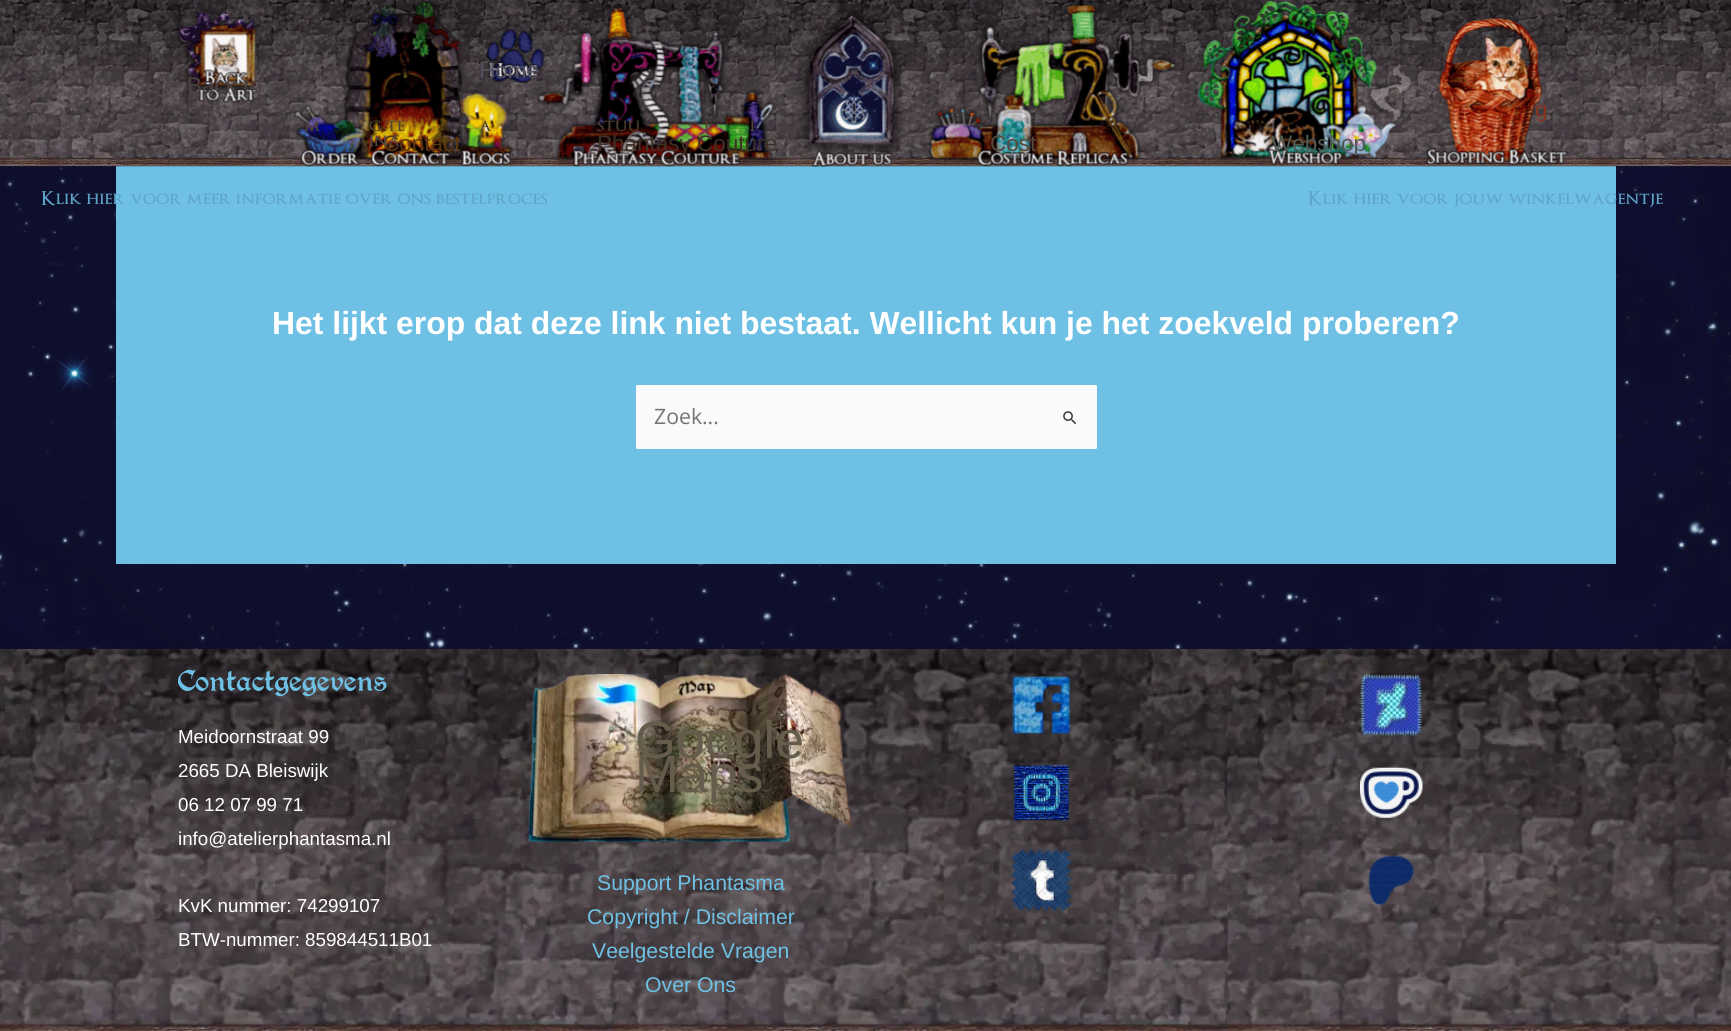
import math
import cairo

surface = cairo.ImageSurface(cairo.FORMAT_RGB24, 1731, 1031)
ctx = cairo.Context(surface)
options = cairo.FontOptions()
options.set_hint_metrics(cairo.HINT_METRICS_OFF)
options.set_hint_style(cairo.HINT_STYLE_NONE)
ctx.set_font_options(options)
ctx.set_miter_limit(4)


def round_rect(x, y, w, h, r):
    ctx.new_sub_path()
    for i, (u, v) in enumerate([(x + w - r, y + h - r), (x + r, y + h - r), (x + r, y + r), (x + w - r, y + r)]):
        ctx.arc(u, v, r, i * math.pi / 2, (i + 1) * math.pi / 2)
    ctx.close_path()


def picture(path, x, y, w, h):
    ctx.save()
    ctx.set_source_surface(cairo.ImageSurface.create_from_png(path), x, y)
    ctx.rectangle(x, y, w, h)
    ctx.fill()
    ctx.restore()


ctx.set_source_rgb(1, 1, 1)
ctx.paint()
picture("img1.png", 0, 166, 1731, 483)
ctx.set_source_rgb(0.431, 0.757, 0.894)
ctx.rectangle(116, 166, 1500, 398)
ctx.fill()
picture("img2.png", 0, 0, 1731, 167)
picture("img3.png", 175, 0, 1393, 167)
ctx.select_font_face("Liberation Sans")
ctx.set_font_size(22.5)
ctx.set_source_rgb(0.294, 0.255, 0.251)
ctx.move_to(187, 93)
ctx.show_text("Back to")
ctx.set_source_rgb(0.361, 0.22, 0.055)
ctx.move_to(383, 151)
ctx.show_text("Contact")
ctx.select_font_face("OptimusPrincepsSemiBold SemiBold")
ctx.set_font_size(18.75)
ctx.set_source_rgb(0.318, 0.282, 0.298)
ctx.move_to(369, 147)
ctx.show_text("ina")
ctx.select_font_face("Liberation Sans")
ctx.set_font_size(22.5)
ctx.set_source_rgb(0.322, 0.314, 0.376)
ctx.move_to(479, 78)
ctx.show_text("Home")
ctx.select_font_face("OptimusPrincepsSemiBold SemiBold")
ctx.set_font_size(18.75)
ctx.set_source_rgb(0.322, 0.271, 0.196)
ctx.move_to(304, 132)
ctx.show_text("m")
ctx.move_to(369, 132)
ctx.show_text("g te")
ctx.move_to(479, 132)
ctx.show_text("a")
ctx.move_to(597, 132)
ctx.show_text("stuu")
ctx.move_to(704, 132)
ctx.show_text("e")
ctx.move_to(750, 132)
ctx.show_text("i")
ctx.select_font_face("Liberation Sans")
ctx.set_font_size(22.5)
ctx.set_source_rgb(0.525, 0.204, 0.122)
ctx.move_to(1535, 117)
ctx.show_text("g")
ctx.select_font_face("OptimusPrincepsSemiBold SemiBold")
ctx.set_font_size(18.75)
ctx.set_source_rgb(0.373, 0.647, 0.784)
ctx.move_to(1308, 205)
ctx.show_text("Klik hier voor jouw winkelwagentje")
ctx.select_font_face("Liberation Sans")
ctx.set_font_size(22.5)
ctx.set_source_rgb(0.243, 0.192, 0.149)
ctx.move_to(597, 151)
ctx.show_text("Phantasy Couture")
ctx.set_source_rgb(0.337, 0.282, 0.231)
ctx.move_to(990, 151)
ctx.show_text("Cost")
ctx.set_source_rgb(0.306, 0.353, 0.333)
ctx.move_to(1271, 151)
ctx.show_text("Webshop")
ctx.select_font_face("OptimusPrincepsSemiBold SemiBold")
ctx.set_font_size(18.75)
ctx.set_source_rgb(0.373, 0.647, 0.784)
ctx.move_to(41, 205)
ctx.show_text("Klik hier voor meer informatie over ons bestelproces")
ctx.select_font_face("Liberation Sans", cairo.FONT_SLANT_NORMAL, cairo.FONT_WEIGHT_BOLD)
ctx.set_font_size(31.9)
ctx.set_source_rgb(1, 1, 1)
ctx.move_to(272, 334)
ctx.show_text("Het lijkt erop dat deze link niet bestaat. Wellicht kun je het zoekveld proberen?")
ctx.set_source_rgb(0.98, 0.98, 0.98)
round_rect(635.5, 384.5, 462, 65, 2)
ctx.fill_preserve()
ctx.set_source_rgb(0.431, 0.757, 0.894)
ctx.set_line_width(1)
ctx.stroke()
ctx.select_font_face("Open Sans")
ctx.set_font_size(21.25)
ctx.set_source_rgb(0.459, 0.459, 0.459)
ctx.move_to(654, 424)
ctx.show_text("Zoek...")
picture("img4.png", 1063, 411, 13, 14)
picture("img5.png", 0, 649, 1731, 382)
ctx.select_font_face("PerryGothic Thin")
ctx.set_source_rgb(0.431, 0.757, 0.894)
ctx.move_to(178, 691)
ctx.show_text("Contactgegevens")
ctx.select_font_face("Liberation Sans")
ctx.set_font_size(18.75)
ctx.set_source_rgb(1, 1, 1)
ctx.move_to(178, 743)
ctx.show_text("Meidoornstraat 99")
ctx.move_to(178, 777)
ctx.show_text("2665 DA Bleiswijk")
ctx.move_to(178, 811)
ctx.show_text("06 12 07 99 71")
ctx.move_to(178, 845)
ctx.show_text("info@atelierphantasma.nl")
ctx.move_to(178, 912)
ctx.show_text("KvK nummer: 74299107")
ctx.move_to(178, 946)
ctx.show_text("BTW-nummer: 859844511B01")
picture("img6.png", 528, 674, 325, 168)
ctx.set_font_size(52.5)
ctx.set_source_rgb(0.396, 0.361, 0.294)
ctx.move_to(635, 758)
ctx.show_text("Google")
ctx.move_to(635, 792)
ctx.show_text("Maps")
ctx.set_font_size(21.25)
ctx.set_source_rgb(0.431, 0.757, 0.894)
ctx.move_to(597, 890)
ctx.show_text("Support Phantasma")
ctx.move_to(587, 924)
ctx.show_text("Copyright / Disclaimer")
ctx.move_to(592, 958)
ctx.show_text("Veelgestelde Vragen")
ctx.move_to(645, 992)
ctx.show_text("Over Ons")
picture("img7.png", 1012, 676, 59, 59)
picture("img8.png", 1013, 765, 56, 56)
picture("img9.png", 1011, 849, 61, 63)
picture("img10.png", 1360, 674, 63, 63)
picture("img11.png", 1360, 766, 63, 53)
picture("img12.png", 1368, 855, 46, 51)
surface.write_to_png("page.png")
